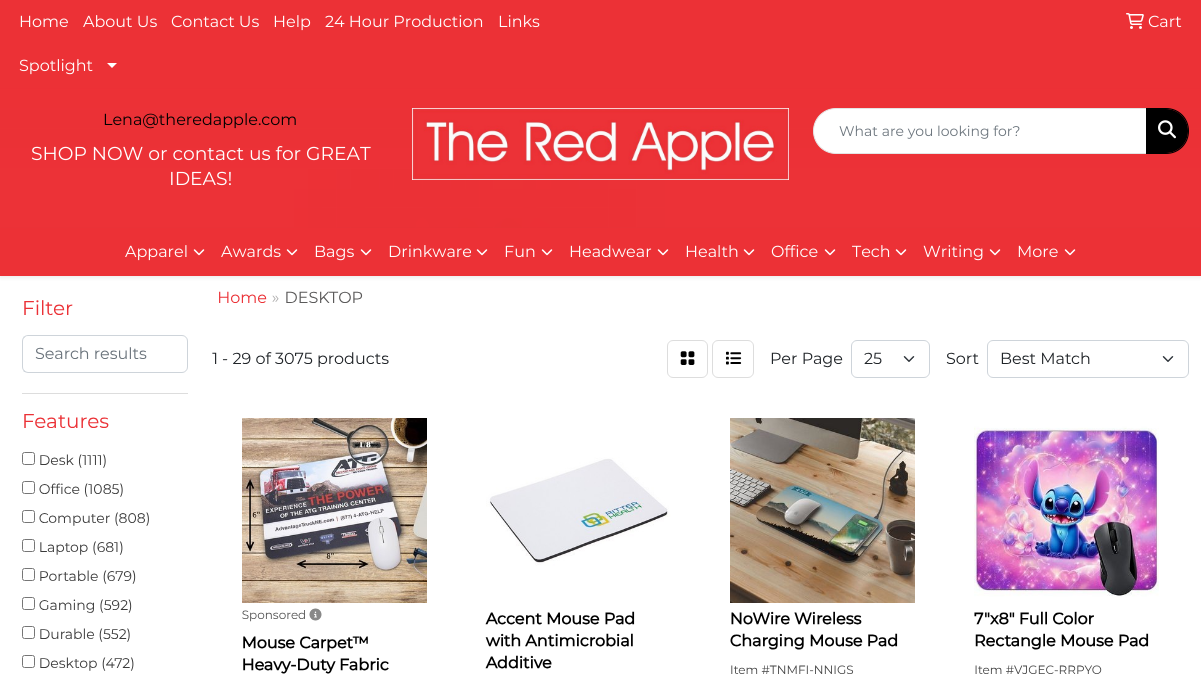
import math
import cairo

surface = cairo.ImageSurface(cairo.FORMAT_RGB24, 1201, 677)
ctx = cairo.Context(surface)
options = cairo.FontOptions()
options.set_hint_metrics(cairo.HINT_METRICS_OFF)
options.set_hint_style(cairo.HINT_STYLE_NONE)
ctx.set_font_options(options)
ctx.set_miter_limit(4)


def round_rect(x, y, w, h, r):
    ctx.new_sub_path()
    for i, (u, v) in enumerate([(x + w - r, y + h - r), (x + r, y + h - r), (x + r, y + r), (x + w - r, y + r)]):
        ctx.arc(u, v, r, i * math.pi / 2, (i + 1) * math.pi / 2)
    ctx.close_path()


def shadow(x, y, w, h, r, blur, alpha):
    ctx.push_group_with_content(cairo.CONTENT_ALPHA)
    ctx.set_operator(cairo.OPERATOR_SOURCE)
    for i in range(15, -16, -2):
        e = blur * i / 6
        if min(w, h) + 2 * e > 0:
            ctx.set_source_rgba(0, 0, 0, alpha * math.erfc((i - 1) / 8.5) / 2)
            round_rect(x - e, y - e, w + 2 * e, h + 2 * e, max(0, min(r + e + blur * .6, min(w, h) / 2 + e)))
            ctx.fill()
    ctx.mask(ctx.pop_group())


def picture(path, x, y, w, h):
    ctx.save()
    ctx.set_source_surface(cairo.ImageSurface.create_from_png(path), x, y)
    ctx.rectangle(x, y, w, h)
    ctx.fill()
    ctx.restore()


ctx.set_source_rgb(1, 1, 1)
ctx.paint()
picture("img1.png", 0, 88, 1201, 140)
ctx.set_source_rgb(0.922, 0.192, 0.212)
ctx.rectangle(0, 0, 1201, 88)
ctx.fill()
ctx.select_font_face("Montserrat Thin")
ctx.set_font_size(16)
ctx.set_source_rgb(1, 1, 1)
ctx.move_to(19, 27)
ctx.show_text("Home")
ctx.move_to(83, 27)
ctx.show_text("About Us")
ctx.move_to(171, 27)
ctx.show_text("Contact Us")
ctx.move_to(273, 27)
ctx.show_text("Help")
ctx.move_to(325, 27)
ctx.show_text("24 Hour Production")
ctx.move_to(498, 27)
ctx.show_text("Links")
ctx.move_to(19, 71)
ctx.show_text("Spotlight")
ctx.new_path()
ctx.move_to(107, 63)
ctx.line_to(117, 63)
ctx.line_to(112, 68)
ctx.close_path()
ctx.fill()
picture("img2.png", 1126, 13, 18, 16)
ctx.move_to(1148, 27)
ctx.show_text("Cart")
ctx.set_source_rgb(0, 0, 0)
ctx.move_to(103, 125)
ctx.show_text("Lena@theredapple.com")
ctx.set_font_size(18.7)
ctx.set_source_rgb(1, 1, 1)
ctx.move_to(31, 160)
ctx.show_text("SHOP NOW or contact us for GREAT")
ctx.move_to(169, 185)
ctx.show_text("IDEAS!")
picture("img3.png", 412, 108, 377, 72)
ctx.new_path()
ctx.move_to(836, 108.5)
ctx.line_to(1146.5, 108.5)
ctx.line_to(1146.5, 153.5)
ctx.line_to(836, 153.5)
ctx.curve_to(823.5, 153.5, 813.5, 143.5, 813.5, 131)
ctx.curve_to(813.5, 118.5, 823.5, 108.5, 836, 108.5)
ctx.close_path()
ctx.fill_preserve()
ctx.set_source_rgb(0.894, 0.894, 0.894)
ctx.set_line_width(1)
ctx.stroke()
ctx.set_font_size(14)
ctx.set_source_rgb(0.424, 0.459, 0.49)
ctx.move_to(839, 136)
ctx.show_text("What are you looking for?")
ctx.set_source_rgb(0, 0, 0)
ctx.new_path()
ctx.move_to(1146, 109)
ctx.line_to(1166, 109)
ctx.curve_to(1178, 109, 1188, 119, 1188, 131)
ctx.curve_to(1188, 143, 1178, 153, 1166, 153)
ctx.line_to(1146, 153)
ctx.close_path()
ctx.fill()
ctx.set_fill_rule(cairo.FILL_RULE_EVEN_ODD)
ctx.new_path()
ctx.move_to(1146, 108)
ctx.line_to(1166, 108)
ctx.curve_to(1179, 108, 1189, 118, 1189, 131)
ctx.curve_to(1189, 144, 1179, 154, 1166, 154)
ctx.line_to(1146, 154)
ctx.close_path()
ctx.move_to(1146, 109)
ctx.line_to(1166, 109)
ctx.curve_to(1178, 109, 1188, 119, 1188, 131)
ctx.curve_to(1188, 143, 1178, 153, 1166, 153)
ctx.line_to(1146, 153)
ctx.close_path()
ctx.fill()
picture("img4.png", 1158, 120, 18, 19)
ctx.set_source_rgb(0, 0, 0)
shadow(0, 230, 1201, 48, 0, 2, 0.07)
ctx.set_source_rgb(0.922, 0.192, 0.212)
ctx.rectangle(0, 228, 1201, 48)
ctx.fill()
ctx.set_font_size(16)
ctx.set_source_rgb(1, 1, 1)
ctx.move_to(125, 257)
ctx.show_text("Apparel")
picture("img5.png", 193, 249, 12, 7)
ctx.move_to(221, 257)
ctx.show_text("Awards")
picture("img5.png", 286, 249, 12, 7)
ctx.move_to(314, 257)
ctx.show_text("Bags")
picture("img5.png", 360, 249, 12, 7)
ctx.move_to(388, 257)
ctx.show_text("Drinkware")
picture("img5.png", 476, 249, 12, 7)
ctx.move_to(504, 257)
ctx.show_text("Fun")
picture("img5.png", 541, 249, 12, 7)
ctx.move_to(569, 257)
ctx.show_text("Headwear")
picture("img5.png", 657, 249, 12, 7)
ctx.move_to(685, 257)
ctx.show_text("Health")
picture("img5.png", 743, 249, 12, 7)
ctx.move_to(771, 257)
ctx.show_text("Office")
picture("img5.png", 824, 249, 12, 7)
ctx.move_to(852, 257)
ctx.show_text("Tech")
picture("img5.png", 895, 249, 12, 7)
ctx.move_to(923, 257)
ctx.show_text("Writing")
picture("img5.png", 989, 249, 12, 7)
ctx.move_to(1017, 257)
ctx.show_text("More")
picture("img5.png", 1064, 249, 12, 7)
picture("img6.png", 22, 291, 1167, 383)
surface.write_to_png("page.png")
